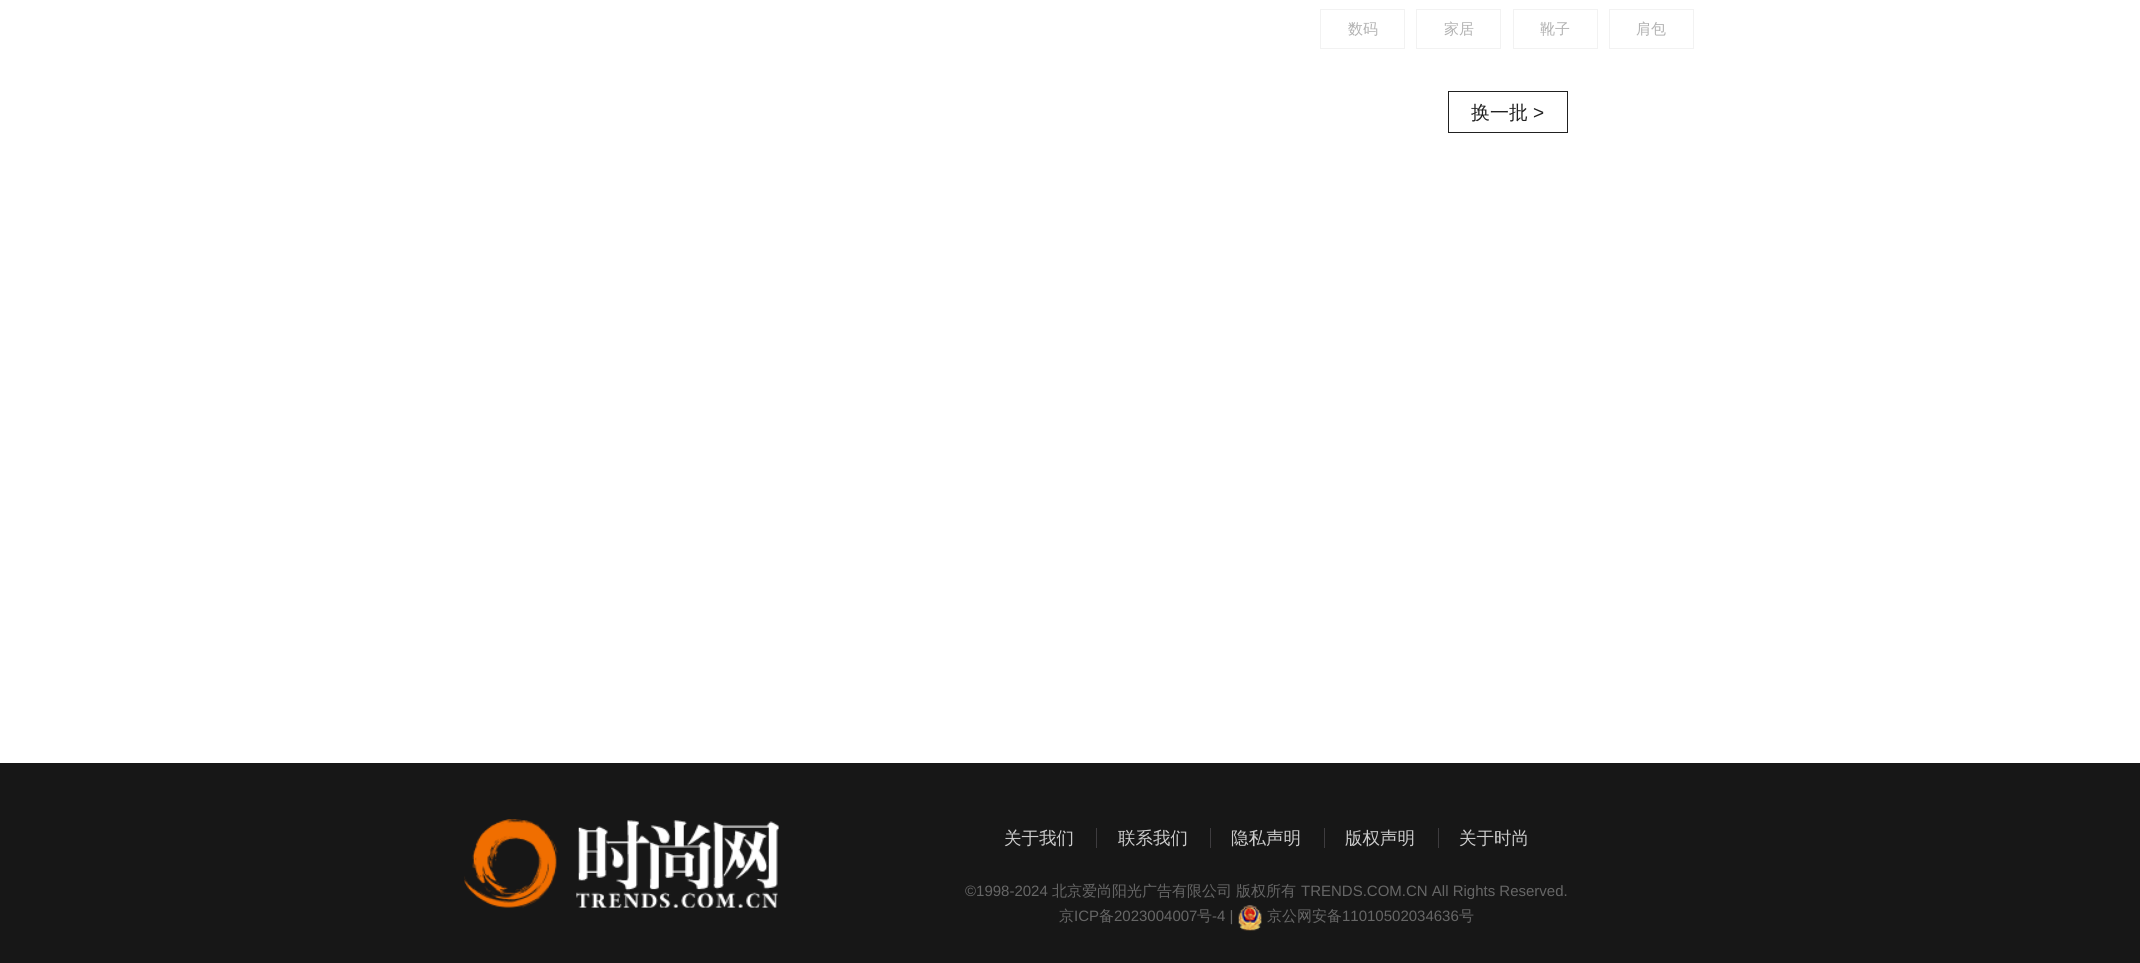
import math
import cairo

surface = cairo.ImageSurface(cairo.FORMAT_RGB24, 2140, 963)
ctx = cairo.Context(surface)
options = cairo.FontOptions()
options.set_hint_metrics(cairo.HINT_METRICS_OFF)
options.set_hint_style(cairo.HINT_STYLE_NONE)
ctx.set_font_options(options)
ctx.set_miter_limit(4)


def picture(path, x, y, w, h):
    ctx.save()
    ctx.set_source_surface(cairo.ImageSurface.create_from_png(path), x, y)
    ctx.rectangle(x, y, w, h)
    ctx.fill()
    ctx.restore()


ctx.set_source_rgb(1, 1, 1)
ctx.paint()
ctx.rectangle(1320.5, 9.5, 84, 39)
ctx.set_source_rgb(0.949, 0.949, 0.949)
ctx.set_line_width(1)
ctx.stroke()
ctx.select_font_face("WenQuanYi Zen Hei Medium")
ctx.set_font_size(15)
ctx.set_source_rgb(0.698, 0.698, 0.698)
ctx.move_to(1348, 34)
ctx.show_text("数码")
ctx.rectangle(1416.5, 9.5, 84, 39)
ctx.set_source_rgb(0.949, 0.949, 0.949)
ctx.stroke()
ctx.set_source_rgb(0.698, 0.698, 0.698)
ctx.move_to(1444, 34)
ctx.show_text("家居")
ctx.rectangle(1513.5, 9.5, 84, 39)
ctx.set_source_rgb(0.949, 0.949, 0.949)
ctx.stroke()
ctx.set_source_rgb(0.698, 0.698, 0.698)
ctx.move_to(1540, 34)
ctx.show_text("靴子")
ctx.rectangle(1609.5, 9.5, 84, 39)
ctx.set_source_rgb(0.949, 0.949, 0.949)
ctx.stroke()
ctx.set_source_rgb(0.698, 0.698, 0.698)
ctx.move_to(1636, 34)
ctx.show_text("肩包")
ctx.rectangle(1448.5, 91.5, 119, 41)
ctx.set_source_rgb(0.129, 0.129, 0.129)
ctx.stroke()
ctx.set_font_size(19)
ctx.move_to(1471, 119)
ctx.show_text("换一批")
ctx.select_font_face("Liberation Sans")
ctx.move_to(1533, 119)
ctx.show_text(">")
ctx.set_source_rgb(0.09, 0.09, 0.09)
ctx.rectangle(0, 763, 2140, 200)
ctx.fill()
picture("img1.png", 464, 819, 315, 89)
ctx.set_source_rgb(0.243, 0.235, 0.247)
ctx.rectangle(1096, 828, 1, 20)
ctx.fill()
ctx.select_font_face("WenQuanYi Zen Hei Medium")
ctx.set_font_size(17.5)
ctx.set_source_rgb(0.8, 0.8, 0.8)
ctx.move_to(1004, 844)
ctx.show_text("关于我们")
ctx.set_source_rgb(0.243, 0.235, 0.247)
ctx.rectangle(1210, 828, 1, 20)
ctx.fill()
ctx.set_source_rgb(0.8, 0.8, 0.8)
ctx.move_to(1118, 844)
ctx.show_text("联系我们")
ctx.set_source_rgb(0.243, 0.235, 0.247)
ctx.rectangle(1324, 828, 1, 20)
ctx.fill()
ctx.set_source_rgb(0.8, 0.8, 0.8)
ctx.move_to(1231, 844)
ctx.show_text("隐私声明")
ctx.set_source_rgb(0.243, 0.235, 0.247)
ctx.rectangle(1438, 828, 1, 20)
ctx.fill()
ctx.set_source_rgb(0.8, 0.8, 0.8)
ctx.move_to(1345, 844)
ctx.show_text("版权声明")
ctx.move_to(1459, 844)
ctx.show_text("关于时尚")
ctx.select_font_face("Liberation Sans")
ctx.set_font_size(15)
ctx.set_source_rgb(0.4, 0.4, 0.4)
ctx.move_to(965, 896)
ctx.show_text("©1998-2024")
ctx.select_font_face("WenQuanYi Zen Hei Medium")
ctx.move_to(1052, 896)
ctx.show_text("北京爱尚阳光广告有限公司")
ctx.move_to(1236, 896)
ctx.show_text("版权所有")
ctx.select_font_face("Liberation Sans")
ctx.move_to(1301, 896)
ctx.show_text("TRENDS.COM.CN All Rights Reserved.")
ctx.select_font_face("WenQuanYi Zen Hei Medium")
ctx.move_to(1059, 921)
ctx.show_text("京")
ctx.select_font_face("Liberation Sans")
ctx.move_to(1074, 921)
ctx.show_text("ICP")
ctx.select_font_face("WenQuanYi Zen Hei Medium")
ctx.move_to(1099, 921)
ctx.show_text("备")
ctx.select_font_face("Liberation Sans")
ctx.move_to(1114, 921)
ctx.show_text("2023004007")
ctx.select_font_face("WenQuanYi Zen Hei Medium")
ctx.move_to(1197, 921)
ctx.show_text("号")
ctx.select_font_face("Liberation Sans")
ctx.move_to(1212, 921)
ctx.show_text("-4 |")
picture("img2.png", 1238, 905, 24, 26)
ctx.select_font_face("WenQuanYi Zen Hei Medium")
ctx.move_to(1267, 921)
ctx.show_text("京公网安备")
ctx.select_font_face("Liberation Sans")
ctx.move_to(1342, 921)
ctx.show_text("11010502034636")
ctx.select_font_face("WenQuanYi Zen Hei Medium")
ctx.move_to(1459, 921)
ctx.show_text("号")
surface.write_to_png("page.png")
